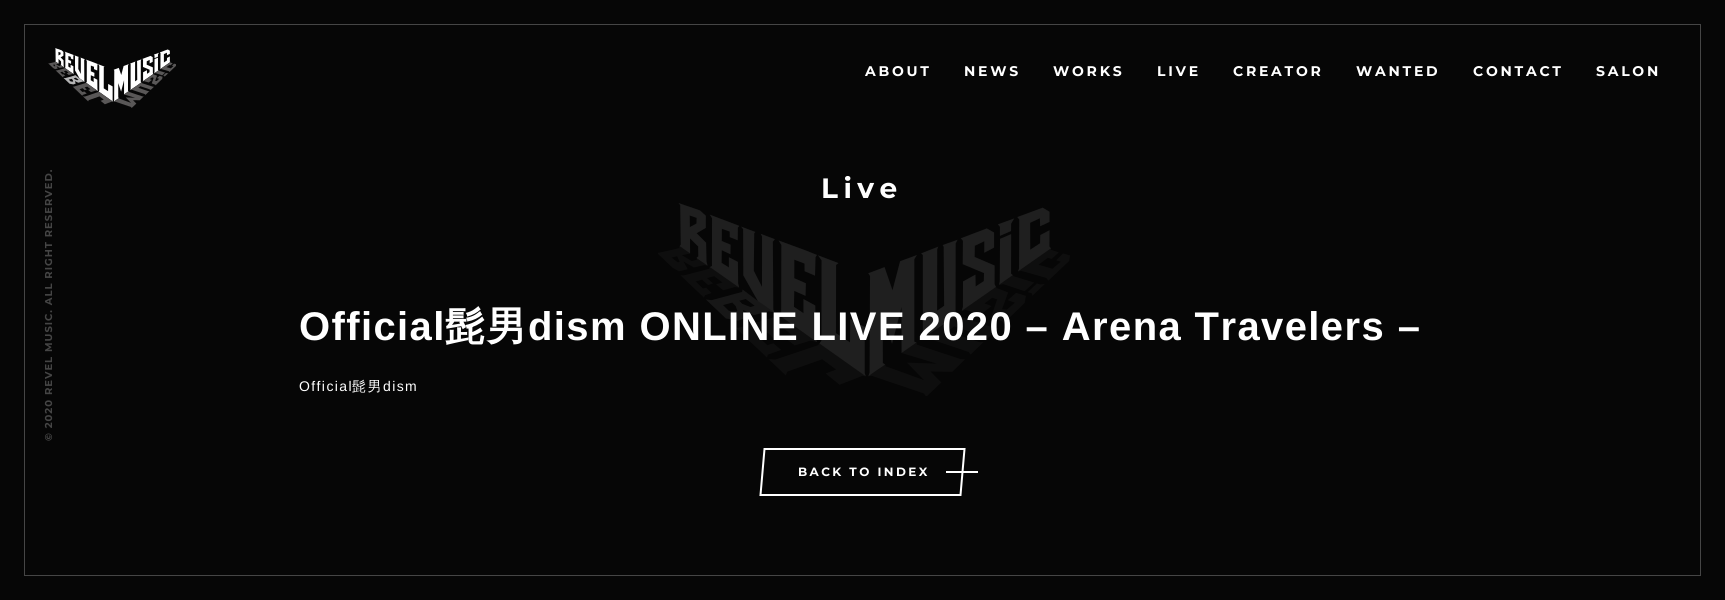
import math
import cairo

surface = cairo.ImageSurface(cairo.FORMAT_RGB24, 1725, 600)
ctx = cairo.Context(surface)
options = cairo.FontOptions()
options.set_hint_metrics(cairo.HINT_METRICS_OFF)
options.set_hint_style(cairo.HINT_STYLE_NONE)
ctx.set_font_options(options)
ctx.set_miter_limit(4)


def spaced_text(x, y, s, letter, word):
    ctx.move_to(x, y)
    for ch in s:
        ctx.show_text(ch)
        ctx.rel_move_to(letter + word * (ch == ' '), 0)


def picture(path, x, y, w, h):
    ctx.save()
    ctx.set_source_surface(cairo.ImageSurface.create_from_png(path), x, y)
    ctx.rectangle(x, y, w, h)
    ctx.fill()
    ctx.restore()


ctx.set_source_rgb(0.027, 0.027, 0.027)
ctx.paint()
picture("img1.png", 658, 203, 412, 193)
ctx.rectangle(24.5, 24.5, 1676, 551)
ctx.set_source_rgb(0.271, 0.271, 0.271)
ctx.set_line_width(1)
ctx.stroke()
picture("img2.png", 48, 48, 128, 60)
ctx.select_font_face("Montserrat Thin")
ctx.set_font_size(14)
ctx.set_source_rgb(1, 1, 1)
spaced_text(865, 76, "ABOUT", 2.75, 0)
spaced_text(964, 76, "NEWS", 2.75, 0)
spaced_text(1053, 76, "WORKS", 2.75, 0)
spaced_text(1157, 76, "LIVE", 2.75, 0)
spaced_text(1233, 76, "CREATOR", 2.75, 0)
spaced_text(1356, 76, "WANTED", 2.75, 0)
spaced_text(1473, 76, "CONTACT", 2.75, 0)
spaced_text(1596, 76, "SALON", 2.75, 0)
ctx.set_font_size(10)
ctx.set_source_rgb(0.271, 0.271, 0.271)
ctx.save()
ctx.translate(52, 441)
ctx.rotate(-90 * math.pi / 180)
spaced_text(0, 0, "© 2020 REVEL MUSIC. ALL RIGHT RESERVED.", 1, 0)
ctx.restore()
ctx.set_font_size(28)
ctx.set_source_rgb(1, 1, 1)
spaced_text(821, 198, "Live", 5.5, 0)
ctx.select_font_face("Liberation Sans", cairo.FONT_SLANT_NORMAL, cairo.FONT_WEIGHT_BOLD)
ctx.set_font_size(40)
spaced_text(299, 340, "Official", 1.4, 0)
ctx.select_font_face("WenQuanYi Zen Hei", cairo.FONT_SLANT_NORMAL, cairo.FONT_WEIGHT_BOLD)
spaced_text(445, 340, "髭男", 1.4, 0)
ctx.select_font_face("Liberation Sans", cairo.FONT_SLANT_NORMAL, cairo.FONT_WEIGHT_BOLD)
spaced_text(528, 340, "dism ONLINE LIVE 2020 – Arena Travelers –", 1.4, 0)
ctx.select_font_face("Liberation Sans")
ctx.set_font_size(14)
spaced_text(299, 391, "Official", 1.4, 0)
ctx.select_font_face("WenQuanYi Zen Hei Medium")
spaced_text(352, 391, "髭男", 1.4, 0)
ctx.select_font_face("Liberation Sans")
spaced_text(383, 391, "dism", 1.4, 0)
ctx.new_path()
ctx.move_to(764.5, 449)
ctx.line_to(964.5, 449)
ctx.line_to(960.5, 495)
ctx.line_to(760.5, 495)
ctx.close_path()
ctx.set_line_width(2)
ctx.stroke()
ctx.select_font_face("Montserrat Thin")
ctx.set_font_size(12)
spaced_text(798, 476, "BACK TO INDEX", 2.4, 0)
ctx.rectangle(946, 471, 32, 2)
ctx.fill()
surface.write_to_png("page.png")
